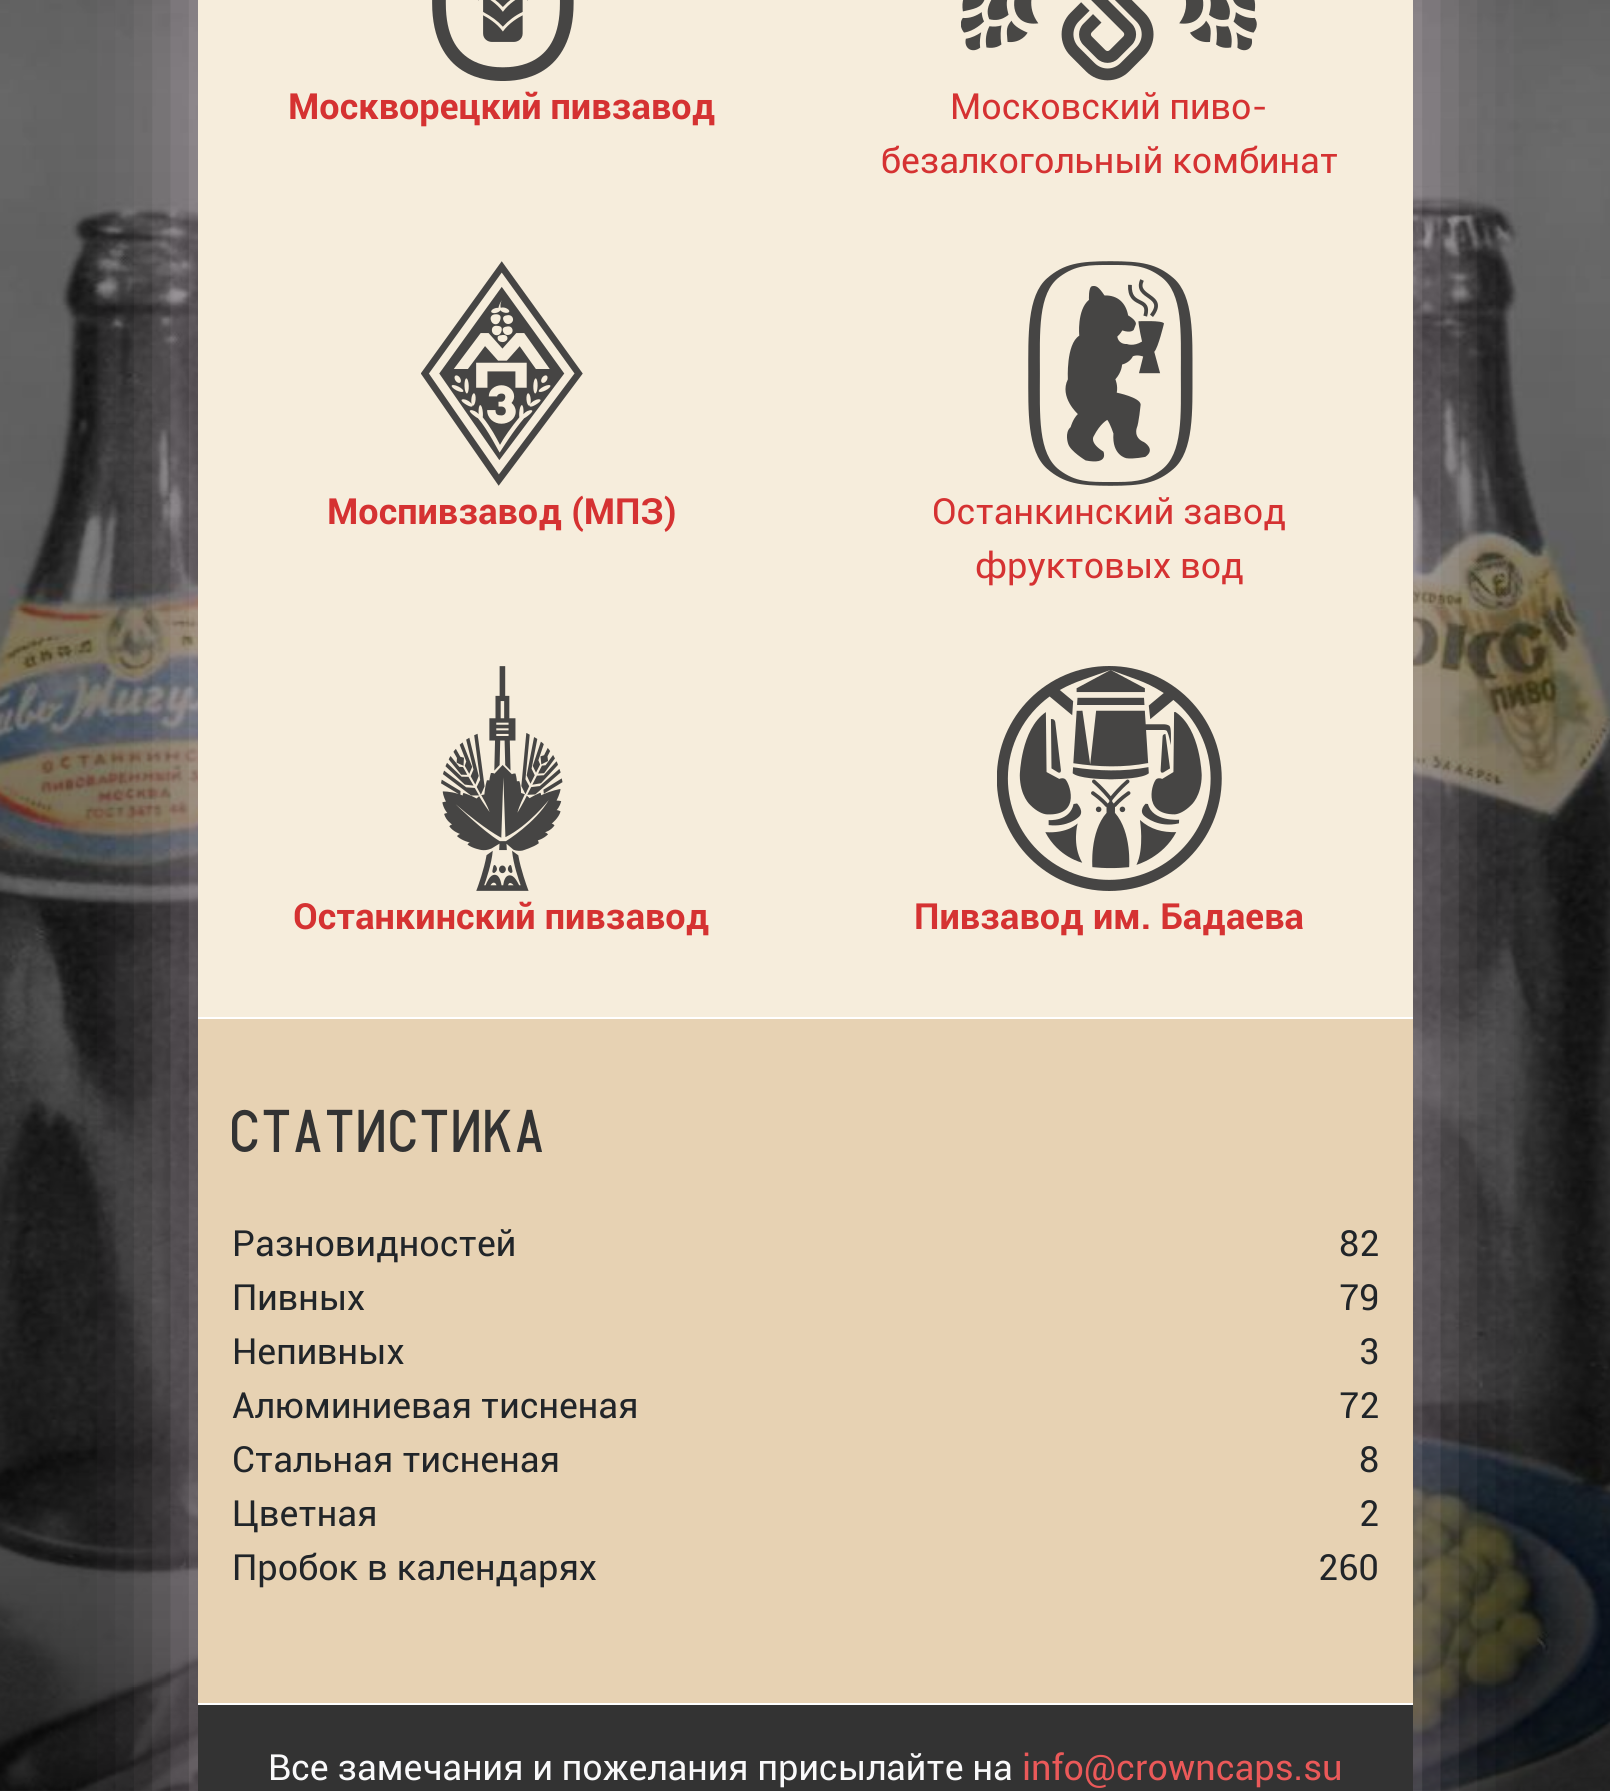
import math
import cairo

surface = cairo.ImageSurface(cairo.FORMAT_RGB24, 1610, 1791)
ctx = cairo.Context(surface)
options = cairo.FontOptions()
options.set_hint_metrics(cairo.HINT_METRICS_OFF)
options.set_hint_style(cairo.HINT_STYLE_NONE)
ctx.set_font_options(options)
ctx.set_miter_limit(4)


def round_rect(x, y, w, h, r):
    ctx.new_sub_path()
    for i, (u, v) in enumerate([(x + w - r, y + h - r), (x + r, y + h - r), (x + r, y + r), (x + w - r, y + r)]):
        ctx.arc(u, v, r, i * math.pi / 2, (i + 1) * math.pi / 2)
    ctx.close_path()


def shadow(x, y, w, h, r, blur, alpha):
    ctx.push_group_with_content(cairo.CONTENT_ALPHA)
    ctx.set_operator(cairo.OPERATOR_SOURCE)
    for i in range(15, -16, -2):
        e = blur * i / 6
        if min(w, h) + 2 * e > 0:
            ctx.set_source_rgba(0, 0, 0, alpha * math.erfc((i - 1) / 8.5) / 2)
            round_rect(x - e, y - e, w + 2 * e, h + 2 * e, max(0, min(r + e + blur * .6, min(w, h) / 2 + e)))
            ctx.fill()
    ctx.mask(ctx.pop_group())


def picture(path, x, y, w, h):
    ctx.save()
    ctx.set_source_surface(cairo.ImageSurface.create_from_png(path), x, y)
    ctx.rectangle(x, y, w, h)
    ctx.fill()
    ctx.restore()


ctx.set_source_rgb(1, 1, 1)
ctx.paint()
picture("img1.png", 0, 0, 1610, 1791)
gradient = cairo.LinearGradient(805, 0, 806, 1791)
gradient.add_color_stop_rgba(0, 0, 0, 0, 0.4)
gradient.add_color_stop_rgba(0.75, 0, 0, 0, 0.6)
gradient.add_color_stop_rgba(1, 0, 0, 0, 0.8)
ctx.set_source(gradient)
ctx.rectangle(0, 0, 1610, 1791)
ctx.fill()
ctx.set_source_rgb(1, 0.902, 0.965)
shadow(198, -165, 1215, 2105, 0, 55, 0.5)
ctx.set_source_rgb(0.961, 0.929, 0.863)
ctx.rectangle(198, 0, 1215, 1017)
ctx.fill()
picture("img2.png", 432, 0, 142, 81)
ctx.select_font_face("Roboto", cairo.FONT_SLANT_NORMAL, cairo.FONT_WEIGHT_BOLD)
ctx.set_font_size(36)
ctx.set_source_rgb(0.835, 0.196, 0.196)
ctx.move_to(288, 119)
ctx.show_text("Москворецкий пивзавод")
picture("img3.png", 961, 0, 296, 81)
ctx.select_font_face("Roboto")
ctx.move_to(950, 119)
ctx.show_text("Московский пиво-")
ctx.move_to(881, 173)
ctx.show_text("безалкогольный комбинат")
picture("img4.png", 421, 261, 162, 225)
ctx.select_font_face("Roboto", cairo.FONT_SLANT_NORMAL, cairo.FONT_WEIGHT_BOLD)
ctx.move_to(327, 524)
ctx.show_text("Моспивзавод (МПЗ)")
picture("img5.png", 1028, 261, 165, 225)
ctx.select_font_face("Roboto")
ctx.move_to(932, 524)
ctx.show_text("Останкинский завод")
ctx.move_to(975, 578)
ctx.show_text("фруктовых вод")
picture("img6.png", 441, 666, 122, 225)
ctx.select_font_face("Roboto", cairo.FONT_SLANT_NORMAL, cairo.FONT_WEIGHT_BOLD)
ctx.move_to(293, 929)
ctx.show_text("Останкинский пивзавод")
picture("img7.png", 997, 666, 225, 225)
ctx.move_to(914, 929)
ctx.show_text("Пивзавод им. Бадаева")
ctx.set_source_rgb(0.906, 0.824, 0.702)
ctx.rectangle(198, 1019, 1215, 684)
ctx.fill()
ctx.set_source_rgb(1, 1, 1)
ctx.rectangle(198, 1017, 1215, 2)
ctx.fill()
ctx.select_font_face("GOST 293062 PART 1")
ctx.set_font_size(72)
ctx.set_source_rgb(0.2, 0.2, 0.2)
ctx.move_to(232, 1152)
ctx.show_text("СТАТИСТИКА")
ctx.select_font_face("Roboto")
ctx.set_font_size(36)
ctx.set_source_rgb(0.129, 0.145, 0.161)
ctx.move_to(232, 1256)
ctx.show_text("Разновидностей")
ctx.move_to(1339, 1256)
ctx.show_text("82")
ctx.move_to(232, 1310)
ctx.show_text("Пивных")
ctx.move_to(1339, 1310)
ctx.show_text("79")
ctx.move_to(232, 1364)
ctx.show_text("Непивных")
ctx.move_to(1359, 1364)
ctx.show_text("3")
ctx.move_to(232, 1418)
ctx.show_text("Алюминиевая тисненая")
ctx.move_to(1339, 1418)
ctx.show_text("72")
ctx.move_to(232, 1472)
ctx.show_text("Стальная тисненая")
ctx.move_to(1359, 1472)
ctx.show_text("8")
ctx.move_to(232, 1526)
ctx.show_text("Цветная")
ctx.move_to(1359, 1526)
ctx.show_text("2")
ctx.move_to(232, 1580)
ctx.show_text("Пробок в календарях")
ctx.move_to(1318, 1580)
ctx.show_text("260")
ctx.set_source_rgb(0.2, 0.2, 0.2)
ctx.rectangle(198, 1705, 1215, 86)
ctx.fill()
ctx.set_source_rgb(1, 1, 1)
ctx.rectangle(198, 1703, 1215, 2)
ctx.fill()
ctx.set_source_rgb(0.973, 0.976, 0.98)
ctx.move_to(268, 1780)
ctx.show_text("Все замечания и пожелания присылайте на")
ctx.set_source_rgb(0.918, 0.349, 0.349)
ctx.move_to(1022, 1780)
ctx.show_text("info@crowncaps.su")
surface.write_to_png("page.png")
